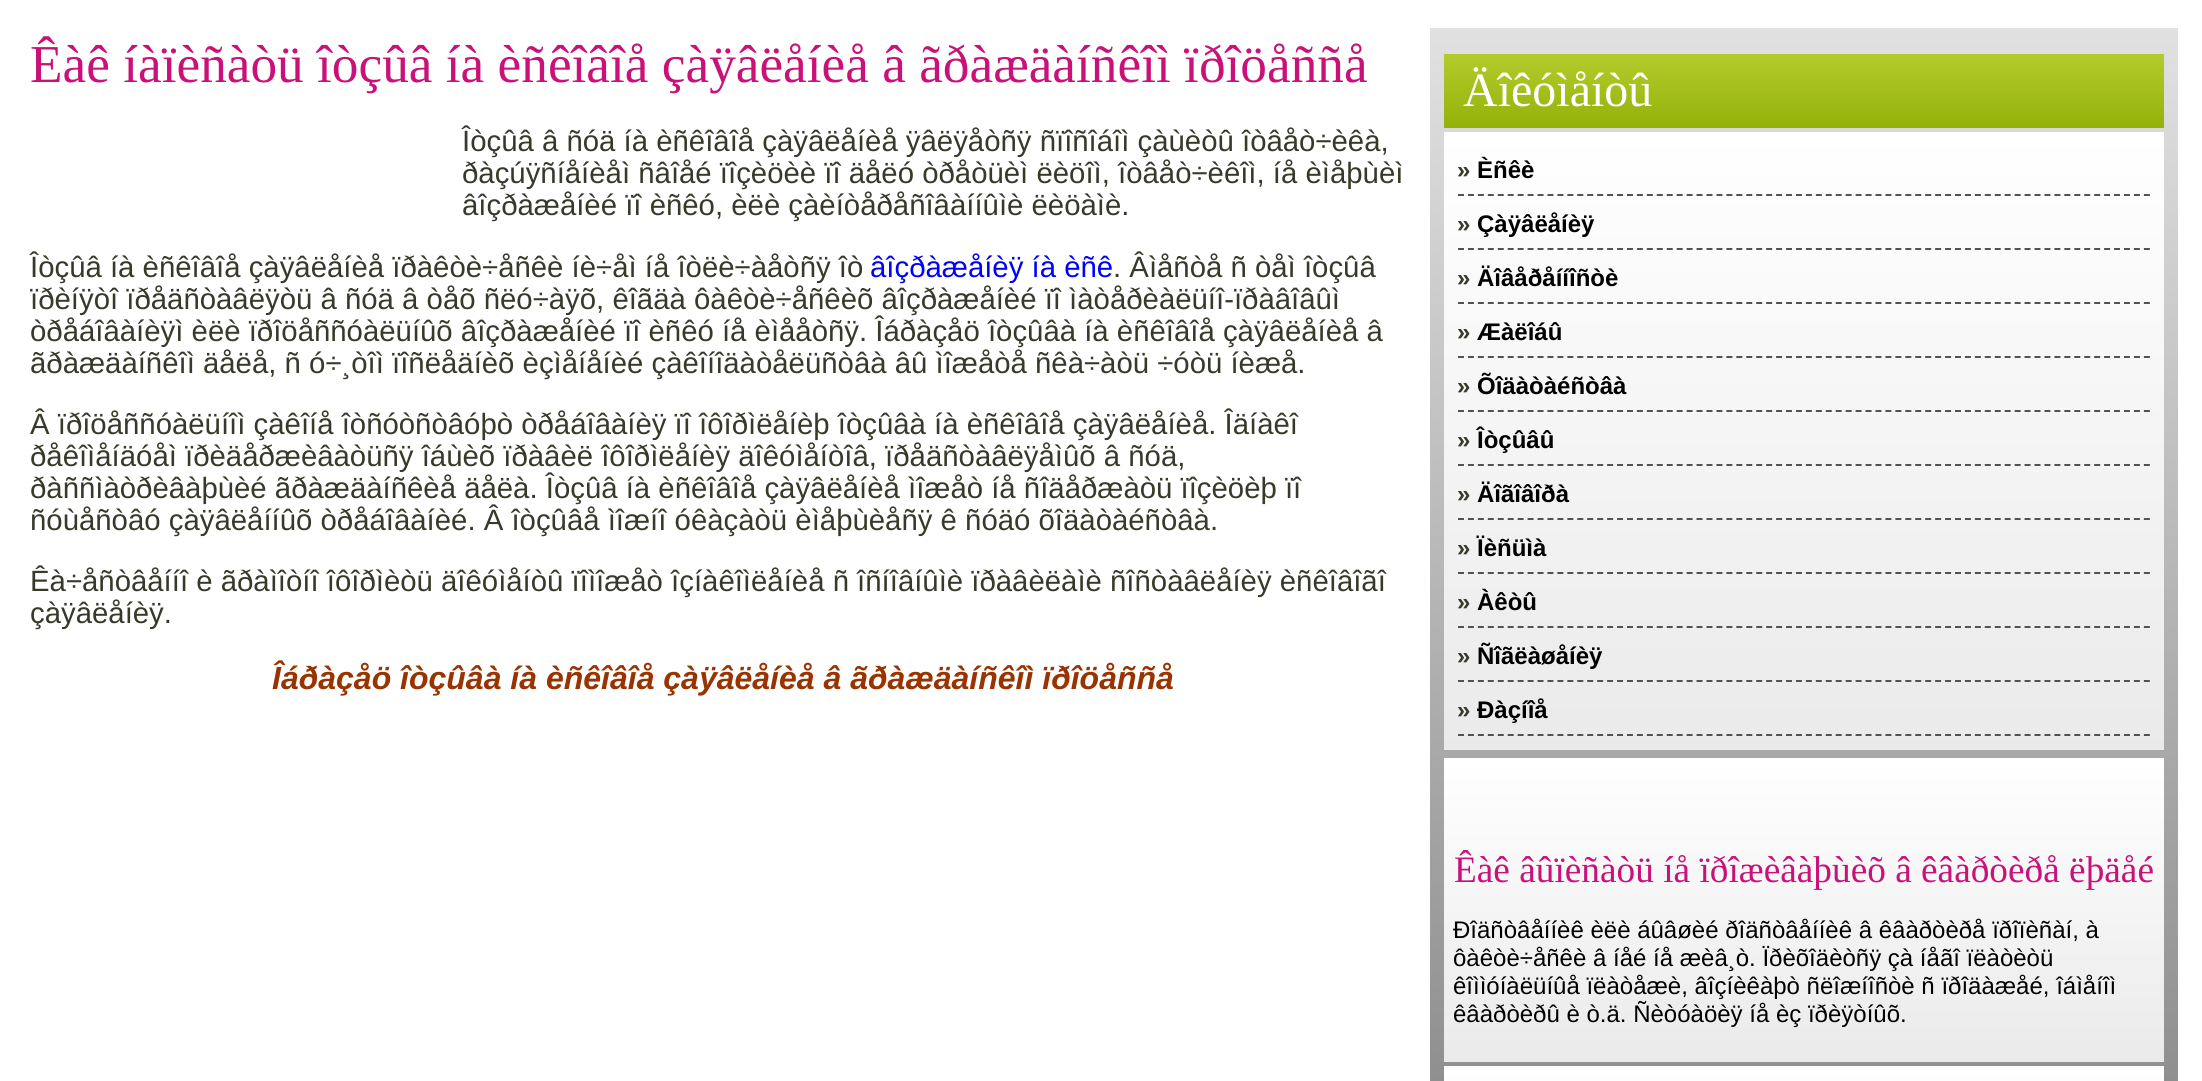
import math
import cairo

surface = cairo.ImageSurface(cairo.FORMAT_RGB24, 2202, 1081)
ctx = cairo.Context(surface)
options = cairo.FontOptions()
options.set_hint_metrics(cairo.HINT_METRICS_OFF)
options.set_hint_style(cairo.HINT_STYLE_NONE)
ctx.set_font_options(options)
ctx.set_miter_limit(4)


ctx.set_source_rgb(1, 1, 1)
ctx.paint()
ctx.select_font_face("Liberation Serif")
ctx.set_font_size(53.3)
ctx.set_source_rgb(0.788, 0.067, 0.475)
ctx.move_to(30, 82)
ctx.show_text("Êàê íàïèñàòü îòçûâ íà èñêîâîå çàÿâëåíèå â ãðàæäàíñêîì ïðîöåññå")
ctx.select_font_face("Liberation Sans")
ctx.set_font_size(29.35)
ctx.set_source_rgb(0.216, 0.224, 0.165)
ctx.move_to(462, 151)
ctx.show_text("Îòçûâ â ñóä íà èñêîâîå çàÿâëåíèå ÿâëÿåòñÿ ñïîñîáîì çàùèòû îòâåò÷èêà,")
ctx.move_to(462, 183)
ctx.show_text("ðàçúÿñíåíèåì ñâîåé ïîçèöèè ïî äåëó òðåòüèì ëèöîì, îòâåò÷èêîì, íå èìåþùèì")
ctx.move_to(462, 215)
ctx.show_text("âîçðàæåíèé ïî èñêó, èëè çàèíòåðåñîâàííûìè ëèöàìè.")
ctx.move_to(30, 277)
ctx.show_text("Îòçûâ íà èñêîâîå çàÿâëåíèå ïðàêòè÷åñêè íè÷åì íå îòëè÷àåòñÿ îò")
ctx.set_source_rgb(0, 0, 1)
ctx.move_to(870, 277)
ctx.show_text("âîçðàæåíèÿ íà èñê")
ctx.set_source_rgb(0.216, 0.224, 0.165)
ctx.move_to(1113, 277)
ctx.show_text(". Âìåñòå ñ òåì îòçûâ")
ctx.move_to(30, 309)
ctx.show_text("ïðèíÿòî ïðåäñòàâëÿòü â ñóä â òåõ ñëó÷àÿõ, êîãäà ôàêòè÷åñêèõ âîçðàæåíèé ïî ìàòåðèàëüíî-ïðàâîâûì")
ctx.move_to(30, 341)
ctx.show_text("òðåáîâàíèÿì èëè ïðîöåññóàëüíûõ âîçðàæåíèé ïî èñêó íå èìååòñÿ. Îáðàçåö îòçûâà íà èñêîâîå çàÿâëåíèå â")
ctx.move_to(30, 373)
ctx.show_text("ãðàæäàíñêîì äåëå, ñ ó÷¸òîì ïîñëåäíèõ èçìåíåíèé çàêîíîäàòåëüñòâà âû ìîæåòå ñêà÷àòü ÷óòü íèæå.")
ctx.move_to(30, 434)
ctx.show_text("Â ïðîöåññóàëüíîì çàêîíå îòñóòñòâóþò òðåáîâàíèÿ ïî îôîðìëåíèþ îòçûâà íà èñêîâîå çàÿâëåíèå. Îäíàêî")
ctx.move_to(30, 466)
ctx.show_text("ðåêîìåíäóåì ïðèäåðæèâàòüñÿ îáùèõ ïðàâèë îôîðìëåíèÿ äîêóìåíòîâ, ïðåäñòàâëÿåìûõ â ñóä,")
ctx.move_to(30, 498)
ctx.show_text("ðàññìàòðèâàþùèé ãðàæäàíñêèå äåëà. Îòçûâ íà èñêîâîå çàÿâëåíèå ìîæåò íå ñîäåðæàòü ïîçèöèþ ïî")
ctx.move_to(30, 530)
ctx.show_text("ñóùåñòâó çàÿâëåííûõ òðåáîâàíèé. Â îòçûâå ìîæíî óêàçàòü èìåþùèåñÿ ê ñóäó õîäàòàéñòâà.")
ctx.move_to(30, 591)
ctx.show_text("Êà÷åñòâåííî è ãðàìîòíî îôîðìèòü äîêóìåíòû ïîìîæåò îçíàêîìëåíèå ñ îñíîâíûìè ïðàâèëàìè ñîñòàâëåíèÿ èñêîâîãî")
ctx.move_to(30, 623)
ctx.show_text("çàÿâëåíèÿ.")
ctx.select_font_face("Liberation Sans", cairo.FONT_SLANT_ITALIC, cairo.FONT_WEIGHT_BOLD)
ctx.set_font_size(32)
ctx.set_source_rgb(0.6, 0.2, 0)
ctx.move_to(272, 689)
ctx.show_text("Îáðàçåö îòçûâà íà èñêîâîå çàÿâëåíèå â ãðàæäàíñêîì ïðîöåññå")
gradient = cairo.LinearGradient(1804, 28, 1804, 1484)
gradient.add_color_stop_rgba(0, 0.882, 0.882, 0.882, 1)
gradient.add_color_stop_rgba(1, 0.439, 0.439, 0.439, 1)
ctx.set_source(gradient)
ctx.rectangle(1430, 28, 748, 1053)
ctx.fill()
gradient = cairo.LinearGradient(1804, 54, 1804, 128)
gradient.add_color_stop_rgba(0, 0.706, 0.8, 0.169, 1)
gradient.add_color_stop_rgba(1, 0.58, 0.694, 0.039, 1)
ctx.set_source(gradient)
ctx.rectangle(1444, 54, 720, 74)
ctx.fill()
ctx.select_font_face("Liberation Serif")
ctx.set_font_size(48)
ctx.set_source_rgb(1, 1, 1)
ctx.move_to(1463, 106)
ctx.show_text("Äîêóìåíòû")
gradient = cairo.LinearGradient(1804, 132, 1804, 750)
gradient.add_color_stop_rgba(0, 1, 1, 1, 1)
gradient.add_color_stop_rgba(1, 0.918, 0.918, 0.918, 1)
ctx.set_source(gradient)
ctx.rectangle(1444, 132, 720, 618)
ctx.fill()
ctx.new_path()
ctx.move_to(1458, 195)
ctx.line_to(2150, 195)
ctx.set_source_rgb(0.322, 0.322, 0.322)
ctx.set_dash([6, 3.94])
ctx.stroke()
ctx.select_font_face("Liberation Sans", cairo.FONT_SLANT_NORMAL, cairo.FONT_WEIGHT_BOLD)
ctx.set_font_size(24)
ctx.set_source_rgb(0.216, 0.224, 0.165)
ctx.move_to(1457, 178)
ctx.show_text("»")
ctx.set_source_rgb(0, 0, 0)
ctx.move_to(1477, 178)
ctx.show_text("Èñêè")
ctx.new_path()
ctx.move_to(1458, 249)
ctx.line_to(2150, 249)
ctx.set_source_rgb(0.322, 0.322, 0.322)
ctx.stroke()
ctx.set_source_rgb(0.216, 0.224, 0.165)
ctx.move_to(1457, 232)
ctx.show_text("»")
ctx.set_source_rgb(0, 0, 0)
ctx.move_to(1477, 232)
ctx.show_text("Çàÿâëåíèÿ")
ctx.new_path()
ctx.move_to(1458, 303)
ctx.line_to(2150, 303)
ctx.set_source_rgb(0.322, 0.322, 0.322)
ctx.stroke()
ctx.set_source_rgb(0.216, 0.224, 0.165)
ctx.move_to(1457, 286)
ctx.show_text("»")
ctx.set_source_rgb(0, 0, 0)
ctx.move_to(1477, 286)
ctx.show_text("Äîâåðåííîñòè")
ctx.new_path()
ctx.move_to(1458, 357)
ctx.line_to(2150, 357)
ctx.set_source_rgb(0.322, 0.322, 0.322)
ctx.stroke()
ctx.set_source_rgb(0.216, 0.224, 0.165)
ctx.move_to(1457, 340)
ctx.show_text("»")
ctx.set_source_rgb(0, 0, 0)
ctx.move_to(1477, 340)
ctx.show_text("Æàëîáû")
ctx.new_path()
ctx.move_to(1458, 411)
ctx.line_to(2150, 411)
ctx.set_source_rgb(0.322, 0.322, 0.322)
ctx.stroke()
ctx.set_source_rgb(0.216, 0.224, 0.165)
ctx.move_to(1457, 394)
ctx.show_text("»")
ctx.set_source_rgb(0, 0, 0)
ctx.move_to(1477, 394)
ctx.show_text("Õîäàòàéñòâà")
ctx.new_path()
ctx.move_to(1458, 465)
ctx.line_to(2150, 465)
ctx.set_source_rgb(0.322, 0.322, 0.322)
ctx.stroke()
ctx.set_source_rgb(0.216, 0.224, 0.165)
ctx.move_to(1457, 448)
ctx.show_text("»")
ctx.set_source_rgb(0, 0, 0)
ctx.move_to(1477, 448)
ctx.show_text("Îòçûâû")
ctx.new_path()
ctx.move_to(1458, 519)
ctx.line_to(2150, 519)
ctx.set_source_rgb(0.322, 0.322, 0.322)
ctx.stroke()
ctx.set_source_rgb(0.216, 0.224, 0.165)
ctx.move_to(1457, 502)
ctx.show_text("»")
ctx.set_source_rgb(0, 0, 0)
ctx.move_to(1477, 502)
ctx.show_text("Äîãîâîðà")
ctx.new_path()
ctx.move_to(1458, 573)
ctx.line_to(2150, 573)
ctx.set_source_rgb(0.322, 0.322, 0.322)
ctx.stroke()
ctx.set_source_rgb(0.216, 0.224, 0.165)
ctx.move_to(1457, 556)
ctx.show_text("»")
ctx.set_source_rgb(0, 0, 0)
ctx.move_to(1477, 556)
ctx.show_text("Ïèñüìà")
ctx.new_path()
ctx.move_to(1458, 627)
ctx.line_to(2150, 627)
ctx.set_source_rgb(0.322, 0.322, 0.322)
ctx.stroke()
ctx.set_source_rgb(0.216, 0.224, 0.165)
ctx.move_to(1457, 610)
ctx.show_text("»")
ctx.set_source_rgb(0, 0, 0)
ctx.move_to(1477, 610)
ctx.show_text("Àêòû")
ctx.new_path()
ctx.move_to(1458, 681)
ctx.line_to(2150, 681)
ctx.set_source_rgb(0.322, 0.322, 0.322)
ctx.stroke()
ctx.set_source_rgb(0.216, 0.224, 0.165)
ctx.move_to(1457, 664)
ctx.show_text("»")
ctx.set_source_rgb(0, 0, 0)
ctx.move_to(1477, 664)
ctx.show_text("Ñîãëàøåíèÿ")
ctx.new_path()
ctx.move_to(1458, 735)
ctx.line_to(2150, 735)
ctx.set_source_rgb(0.322, 0.322, 0.322)
ctx.stroke()
ctx.set_source_rgb(0.216, 0.224, 0.165)
ctx.move_to(1457, 718)
ctx.show_text("»")
ctx.set_source_rgb(0, 0, 0)
ctx.move_to(1477, 718)
ctx.show_text("Ðàçíîå")
gradient = cairo.LinearGradient(1804, 758, 1804, 1062)
gradient.add_color_stop_rgba(0, 1, 1, 1, 1)
gradient.add_color_stop_rgba(1, 0.918, 0.918, 0.918, 1)
ctx.set_source(gradient)
ctx.rectangle(1444, 758, 720, 304)
ctx.fill()
ctx.select_font_face("Liberation Serif")
ctx.set_font_size(37.3)
ctx.set_source_rgb(0.788, 0.067, 0.475)
ctx.move_to(1454, 882)
ctx.show_text("Êàê âûïèñàòü íå ïðîæèâàþùèõ â êâàðòèðå ëþäåé")
ctx.select_font_face("Liberation Sans")
ctx.set_font_size(24)
ctx.set_source_rgb(0, 0, 0)
ctx.move_to(1453, 938)
ctx.show_text("Ðîäñòâåííèê èëè áûâøèé ðîäñòâåííèê â êâàðòèðå ïðîïèñàí, à")
ctx.move_to(1453, 966)
ctx.show_text("ôàêòè÷åñêè â íåé íå æèâ¸ò. Ïðèõîäèòñÿ çà íåãî ïëàòèòü")
ctx.move_to(1453, 994)
ctx.show_text("êîììóíàëüíûå ïëàòåæè, âîçíèêàþò ñëîæíîñòè ñ ïðîäàæåé, îáìåíîì")
ctx.move_to(1453, 1022)
ctx.show_text("êâàðòèðû è ò.ä. Ñèòóàöèÿ íå èç ïðèÿòíûõ.")
gradient = cairo.LinearGradient(1804, 1066, 1804, 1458)
gradient.add_color_stop_rgba(0, 1, 1, 1, 1)
gradient.add_color_stop_rgba(1, 0.918, 0.918, 0.918, 1)
ctx.set_source(gradient)
ctx.rectangle(1444, 1066, 720, 15)
ctx.fill()
surface.write_to_png("page.png")
